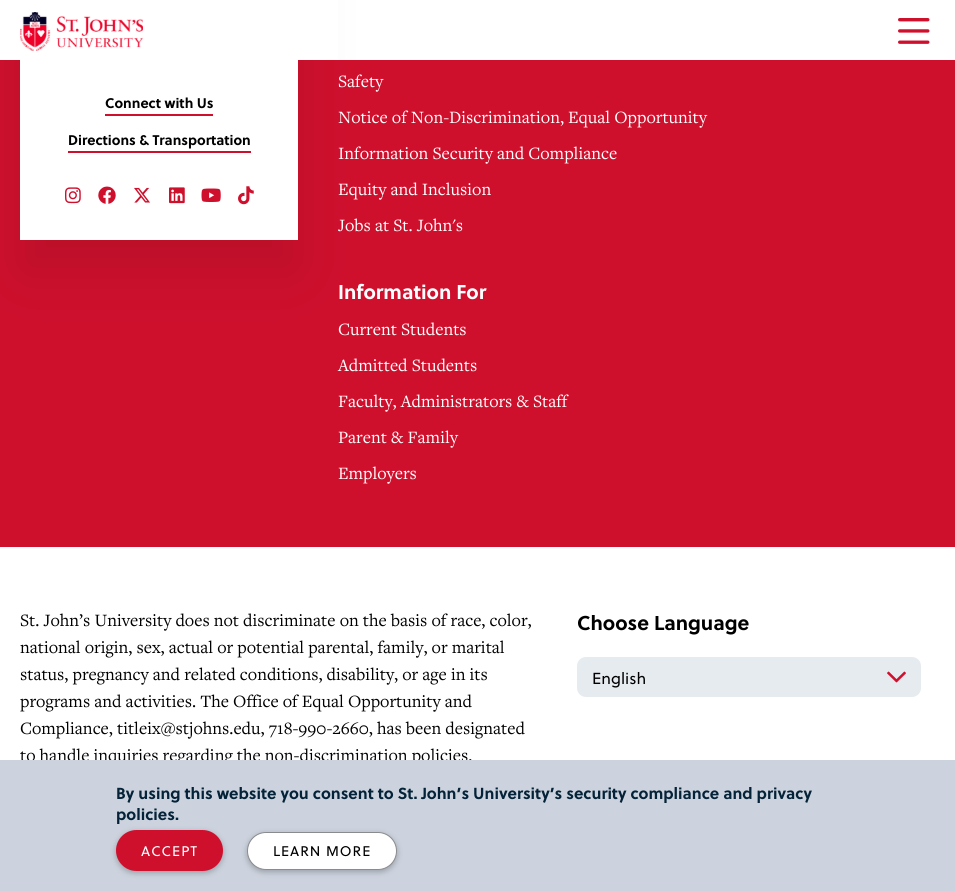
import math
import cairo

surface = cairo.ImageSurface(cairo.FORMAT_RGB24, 955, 891)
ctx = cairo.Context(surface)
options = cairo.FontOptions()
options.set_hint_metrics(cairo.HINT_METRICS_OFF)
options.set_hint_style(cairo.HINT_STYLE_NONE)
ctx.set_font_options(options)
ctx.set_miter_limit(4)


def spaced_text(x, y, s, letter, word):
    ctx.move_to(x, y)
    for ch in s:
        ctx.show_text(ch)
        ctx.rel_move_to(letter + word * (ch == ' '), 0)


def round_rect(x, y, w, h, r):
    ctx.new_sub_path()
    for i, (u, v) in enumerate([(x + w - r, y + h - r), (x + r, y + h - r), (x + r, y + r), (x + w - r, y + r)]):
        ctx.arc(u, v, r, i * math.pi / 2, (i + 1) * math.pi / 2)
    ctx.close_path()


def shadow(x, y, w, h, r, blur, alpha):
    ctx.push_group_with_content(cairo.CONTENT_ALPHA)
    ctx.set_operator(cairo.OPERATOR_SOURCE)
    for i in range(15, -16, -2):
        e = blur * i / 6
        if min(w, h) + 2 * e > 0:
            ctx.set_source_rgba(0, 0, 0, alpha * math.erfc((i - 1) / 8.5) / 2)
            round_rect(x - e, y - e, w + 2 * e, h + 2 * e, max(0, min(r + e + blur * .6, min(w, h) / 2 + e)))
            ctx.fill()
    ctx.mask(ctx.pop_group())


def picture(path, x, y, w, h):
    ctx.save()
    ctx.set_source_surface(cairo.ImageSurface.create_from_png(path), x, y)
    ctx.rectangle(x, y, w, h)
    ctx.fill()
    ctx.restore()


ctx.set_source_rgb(1, 1, 1)
ctx.paint()
ctx.set_source_rgb(0.812, 0.063, 0.176)
ctx.rectangle(0, 60, 955, 487)
ctx.fill()
ctx.set_source_rgb(0, 0, 0)
shadow(20, -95, 278, 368, 0, 31.5, 0.1)
ctx.set_source_rgb(1, 1, 1)
ctx.rectangle(0, 0, 338, 60)
ctx.fill()
picture("img1.png", 20, 12, 123, 39)
picture("img2.png", 898, 18, 32, 26)
ctx.rectangle(20, 60, 278, 180)
ctx.fill()
ctx.select_font_face("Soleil", cairo.FONT_SLANT_NORMAL, cairo.FONT_WEIGHT_BOLD)
ctx.set_font_size(14)
ctx.set_source_rgb(0, 0, 0)
ctx.move_to(105, 108)
ctx.show_text("Connect with Us")
ctx.set_source_rgb(0.812, 0.063, 0.176)
ctx.rectangle(105, 114, 108, 2)
ctx.fill()
ctx.set_source_rgb(0, 0, 0)
ctx.move_to(68, 145)
ctx.show_text("Directions & Transportation")
ctx.set_source_rgb(0.812, 0.063, 0.176)
ctx.rectangle(68, 151, 183, 2)
ctx.fill()
picture("img3.png", 65, 187, 16, 17)
picture("img4.png", 98, 186, 18, 18)
picture("img5.png", 134, 187, 16, 16)
picture("img6.png", 169, 187, 16, 17)
picture("img7.png", 201, 188, 20, 14)
picture("img8.png", 238, 186, 16, 19)
ctx.select_font_face("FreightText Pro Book")
ctx.set_font_size(18)
ctx.set_source_rgb(1, 1, 1)
ctx.move_to(338, 87)
ctx.show_text("Safety")
ctx.move_to(338, 123)
ctx.show_text("Notice of Non-Discrimination, Equal Opportunity")
ctx.move_to(338, 159)
ctx.show_text("Information Security and Compliance")
ctx.move_to(338, 195)
ctx.show_text("Equity and Inclusion")
ctx.move_to(338, 231)
ctx.show_text("Jobs at St. John's")
ctx.select_font_face("Soleil", cairo.FONT_SLANT_NORMAL, cairo.FONT_WEIGHT_BOLD)
ctx.set_font_size(20)
ctx.move_to(338, 299)
ctx.show_text("Information For")
ctx.select_font_face("FreightText Pro Book")
ctx.set_font_size(18)
ctx.move_to(338, 335)
ctx.show_text("Current Students")
ctx.move_to(338, 371)
ctx.show_text("Admitted Students")
ctx.move_to(338, 407)
ctx.show_text("Faculty, Administrators & Staff")
ctx.move_to(338, 443)
ctx.show_text("Parent & Family")
ctx.move_to(338, 479)
ctx.show_text("Employers")
ctx.set_source_rgb(0, 0, 0)
ctx.move_to(20, 626)
ctx.show_text("St. John’s University does not discriminate on the basis of race, color,")
ctx.move_to(20, 653)
ctx.show_text("national origin, sex, actual or potential parental, family, or marital")
ctx.move_to(20, 680)
ctx.show_text("status, pregnancy and related conditions, disability, or age in its")
ctx.move_to(20, 707)
ctx.show_text("programs and activities. The Office of Equal Opportunity and")
ctx.move_to(20, 734)
ctx.show_text("Compliance, titleix@stjohns.edu, 718-990-2660, has been designated")
ctx.move_to(20, 761)
ctx.show_text("to handle inquiries regarding the non-discrimination policies.")
ctx.select_font_face("Soleil", cairo.FONT_SLANT_NORMAL, cairo.FONT_WEIGHT_BOLD)
ctx.set_font_size(20)
ctx.move_to(577, 630)
ctx.show_text("Choose Language")
ctx.set_source_rgb(0.902, 0.918, 0.941)
round_rect(577, 657, 344, 40, 9)
ctx.fill()
picture("img9.png", 887, 671, 19, 12)
ctx.select_font_face("Soleil")
ctx.set_font_size(16)
ctx.set_source_rgb(0, 0, 0)
ctx.move_to(592, 684)
ctx.show_text("English")
ctx.set_source_rgb(0.8, 0.827, 0.871)
ctx.rectangle(0, 760, 955, 131)
ctx.fill()
ctx.select_font_face("Soleil", cairo.FONT_SLANT_NORMAL, cairo.FONT_WEIGHT_BOLD)
ctx.set_source_rgb(0.02, 0.137, 0.22)
ctx.move_to(116, 799)
ctx.show_text("By using this website you consent to St. John’s University’s security compliance and privacy")
ctx.move_to(116, 820)
ctx.show_text("policies.")
ctx.set_source_rgb(0, 0, 0)
shadow(116, 832, 107, 41, 20.5, 3, 0.25)
ctx.set_source_rgb(0.812, 0.063, 0.176)
round_rect(116, 830, 107, 41, 20.5)
ctx.fill()
ctx.select_font_face("Soleil")
ctx.set_font_size(14)
ctx.set_source_rgb(1, 1, 1)
spaced_text(141, 856, "ACCEPT", 1, 0)
ctx.set_source_rgb(0, 0, 0)
shadow(247, 834, 150, 38, 19, 3, 0.25)
ctx.set_source_rgb(1, 1, 1)
round_rect(247.5, 832.5, 149, 37, 18.5)
ctx.fill_preserve()
ctx.set_source_rgb(0.537, 0.545, 0.557)
ctx.set_line_width(1)
ctx.stroke()
ctx.set_source_rgb(0, 0, 0)
spaced_text(273, 856, "LEARN MORE", 1, 0)
surface.write_to_png("page.png")
